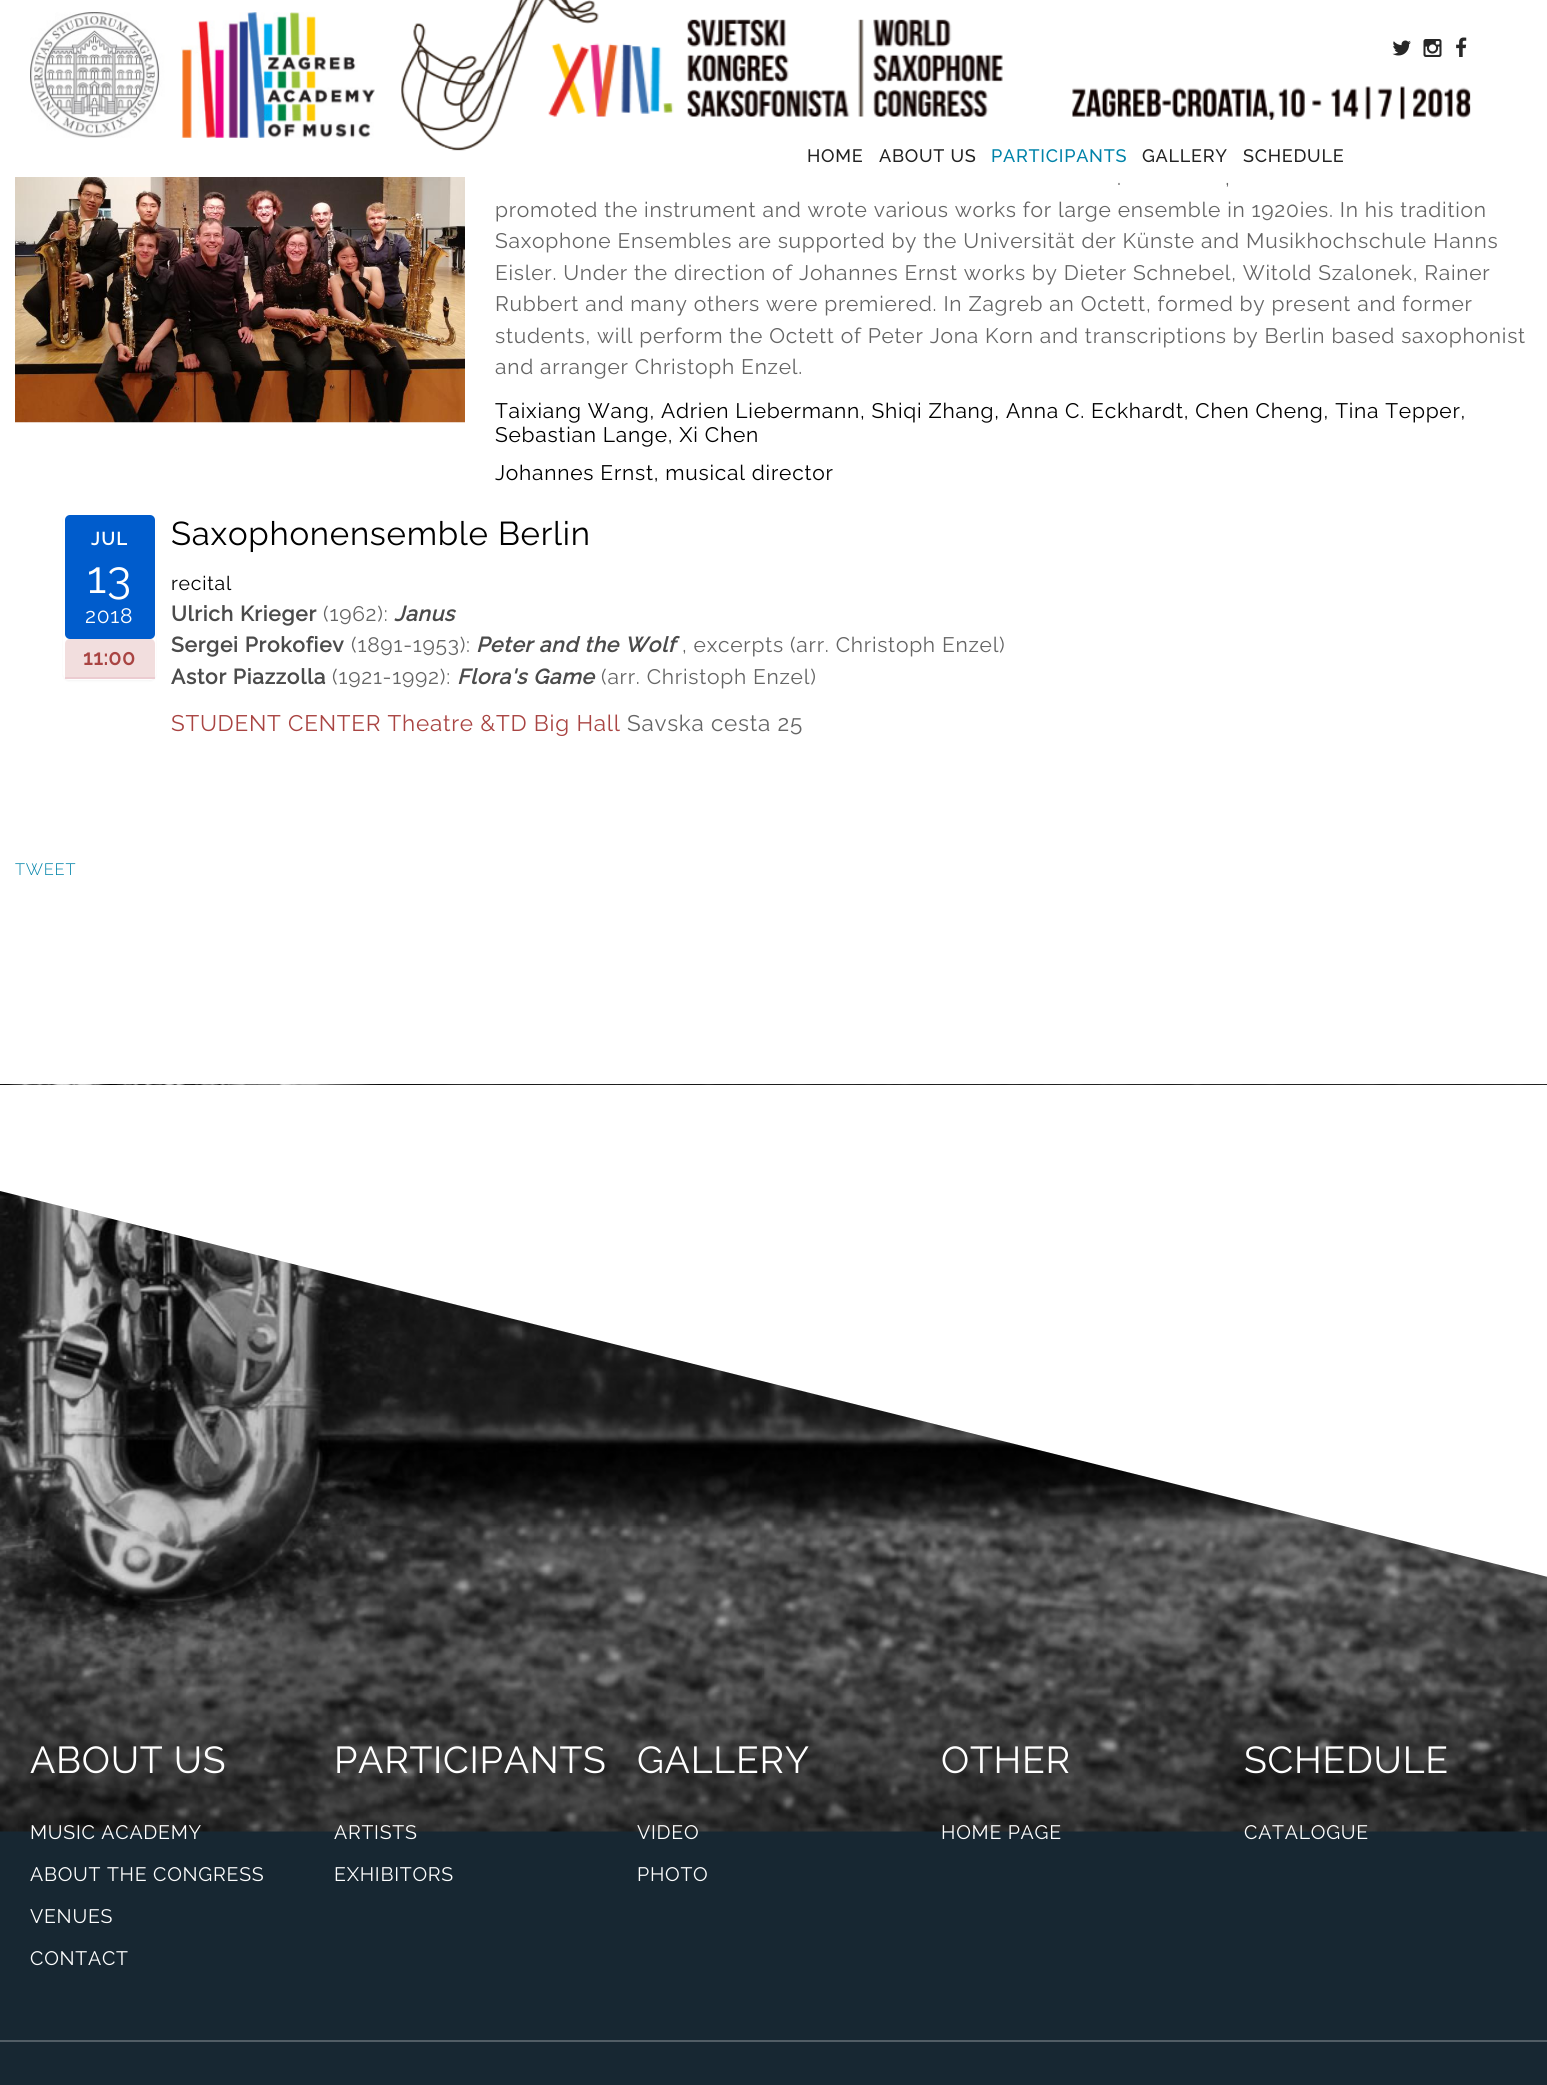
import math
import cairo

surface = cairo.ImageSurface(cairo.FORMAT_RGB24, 1547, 2085)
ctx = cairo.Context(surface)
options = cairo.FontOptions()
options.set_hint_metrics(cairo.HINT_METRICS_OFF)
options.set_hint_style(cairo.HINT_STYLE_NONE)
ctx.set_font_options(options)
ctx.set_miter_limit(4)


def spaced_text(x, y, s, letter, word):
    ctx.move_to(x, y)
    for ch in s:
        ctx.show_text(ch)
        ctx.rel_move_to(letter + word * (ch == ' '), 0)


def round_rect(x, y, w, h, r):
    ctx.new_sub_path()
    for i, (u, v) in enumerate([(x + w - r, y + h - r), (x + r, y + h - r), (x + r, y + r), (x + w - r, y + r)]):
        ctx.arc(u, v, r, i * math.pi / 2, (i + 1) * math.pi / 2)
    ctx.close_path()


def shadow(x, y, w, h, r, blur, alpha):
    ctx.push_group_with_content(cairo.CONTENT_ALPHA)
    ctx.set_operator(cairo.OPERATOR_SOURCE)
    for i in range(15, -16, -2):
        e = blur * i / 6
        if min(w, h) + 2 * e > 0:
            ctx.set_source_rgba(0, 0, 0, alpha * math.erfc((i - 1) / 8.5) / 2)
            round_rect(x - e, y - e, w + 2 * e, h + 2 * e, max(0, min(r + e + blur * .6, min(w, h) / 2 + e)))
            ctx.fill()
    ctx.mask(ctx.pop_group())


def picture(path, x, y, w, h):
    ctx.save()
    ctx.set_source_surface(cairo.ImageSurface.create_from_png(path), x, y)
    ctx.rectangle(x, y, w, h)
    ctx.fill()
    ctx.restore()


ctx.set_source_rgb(1, 1, 1)
ctx.paint()
picture("img1.png", 30, 12, 345, 126)
ctx.select_font_face("Raleway Medium")
ctx.set_font_size(18)
ctx.set_source_rgb(0.133, 0.133, 0.133)
spaced_text(807, 162, "HOME", 0.75, 0)
spaced_text(879, 162, "ABOUT US", 0.75, 0)
ctx.set_source_rgb(0, 0.514, 0.663)
spaced_text(991, 162, "PARTICIPANTS", 0.75, 0)
ctx.set_source_rgb(0.133, 0.133, 0.133)
spaced_text(1142, 162, "GALLERY", 0.75, 0)
spaced_text(1243, 162, "SCHEDULE", 0.75, 0)
picture("img2.png", 401, 0, 198, 151)
picture("img3.png", 548, 19, 455, 98)
picture("img4.png", 1392, 40, 19, 16)
picture("img5.png", 1423, 39, 19, 18)
picture("img6.png", 1456, 37, 11, 20)
picture("img7.png", 1072, 86, 399, 34)
picture("img8.png", 15, 177, 450, 246)
ctx.select_font_face("Raleway")
ctx.set_font_size(21)
ctx.set_source_rgb(0.396, 0.396, 0.396)
spaced_text(1117, 185, ".", 0.75, 0)
spaced_text(1225, 185, ",", 0.75, 0)
spaced_text(495, 217, "promoted the instrument and wrote various works for large ensemble in 1920ies. In his tradition", 0.75, 0)
spaced_text(495, 248, "Saxophone Ensembles are supported by the Universität der Künste and Musikhochschule Hanns", 0.75, 0)
spaced_text(495, 280, "Eisler. Under the direction of Johannes Ernst works by Dieter Schnebel, Witold Szalonek, Rainer", 0.75, 0)
spaced_text(495, 311, "Rubbert and many others were premiered. In Zagreb an Octett, formed by present and former", 0.75, 0)
spaced_text(495, 343, "students, will perform the Octett of Peter Jona Korn and transcriptions by Berlin based saxophonist", 0.75, 0)
spaced_text(495, 374, "and arranger Christoph Enzel.", 0.75, 0)
ctx.set_source_rgb(0, 0, 0)
spaced_text(495, 418, "Taixiang Wang, Adrien Liebermann, Shiqi Zhang, Anna C. Eckhardt, Chen Cheng, Tina Tepper,", 0.75, 0)
spaced_text(495, 442, "Sebastian Lange, Xi Chen", 0.75, 0)
spaced_text(495, 480, "Johannes Ernst, musical director", 0.75, 0)
ctx.set_source_rgb(0, 0, 0)
shadow(63, 515, 93, 166, 6, 1, 0.05)
ctx.set_source_rgb(1, 1, 1)
round_rect(63, 513, 93, 167, 6)
ctx.fill()
ctx.set_source_rgb(0, 0.361, 0.8)
round_rect(65, 515, 90, 124, 5)
ctx.fill()
ctx.select_font_face("Raleway", cairo.FONT_SLANT_NORMAL, cairo.FONT_WEIGHT_BOLD)
ctx.set_font_size(18)
ctx.set_source_rgb(1, 1, 1)
spaced_text(91, 545, "JUL", 1.5, 0)
ctx.select_font_face("Raleway")
ctx.set_font_size(45)
spaced_text(87, 593, "13", 0.75, 0)
ctx.set_font_size(21)
spaced_text(85, 623, "2018", 0.75, 0)
ctx.set_source_rgb(0.949, 0.871, 0.871)
ctx.new_path()
ctx.move_to(70, 639)
ctx.line_to(150, 639)
ctx.curve_to(153, 639, 155, 641, 155, 644)
ctx.line_to(155, 678)
ctx.line_to(65, 678)
ctx.line_to(65, 644)
ctx.curve_to(65, 641, 67, 639, 70, 639)
ctx.close_path()
ctx.fill()
ctx.set_source_rgb(0.922, 0.8, 0.82)
ctx.rectangle(65, 677, 90, 2)
ctx.fill()
ctx.select_font_face("Raleway", cairo.FONT_SLANT_NORMAL, cairo.FONT_WEIGHT_BOLD)
ctx.set_source_rgb(0.663, 0.267, 0.259)
spaced_text(83, 665, "11:00", 0.75, 0)
ctx.select_font_face("Raleway")
ctx.set_font_size(33)
ctx.set_source_rgb(0, 0, 0)
spaced_text(171, 545, "Saxophonensemble Berlin", 0.75, 0)
ctx.set_font_size(19.5)
spaced_text(171, 590, "recital", 0.75, 0)
ctx.select_font_face("Raleway", cairo.FONT_SLANT_NORMAL, cairo.FONT_WEIGHT_BOLD)
ctx.set_font_size(21)
ctx.set_source_rgb(0.294, 0.294, 0.294)
spaced_text(171, 621, "Ulrich Krieger", 0.75, 0)
ctx.select_font_face("Raleway")
ctx.set_source_rgb(0.396, 0.396, 0.396)
spaced_text(323, 621, "(1962):", 0.75, 0)
ctx.select_font_face("Raleway", cairo.FONT_SLANT_ITALIC, cairo.FONT_WEIGHT_BOLD)
ctx.set_source_rgb(0.294, 0.294, 0.294)
spaced_text(394, 621, "Janus", 0.75, 0)
ctx.select_font_face("Raleway", cairo.FONT_SLANT_NORMAL, cairo.FONT_WEIGHT_BOLD)
spaced_text(171, 652, "Sergei Prokofiev", 0.75, 0)
ctx.select_font_face("Raleway")
ctx.set_source_rgb(0.396, 0.396, 0.396)
spaced_text(351, 652, "(1891-1953):", 0.75, 0)
ctx.select_font_face("Raleway", cairo.FONT_SLANT_ITALIC, cairo.FONT_WEIGHT_BOLD)
ctx.set_source_rgb(0.294, 0.294, 0.294)
spaced_text(476, 652, "Peter and the Wolf", 0.75, 0)
ctx.select_font_face("Raleway")
ctx.set_source_rgb(0.396, 0.396, 0.396)
spaced_text(682, 652, ", excerpts (arr. Christoph Enzel)", 0.75, 0)
ctx.select_font_face("Raleway", cairo.FONT_SLANT_NORMAL, cairo.FONT_WEIGHT_BOLD)
ctx.set_source_rgb(0.294, 0.294, 0.294)
spaced_text(171, 684, "Astor Piazzolla", 0.75, 0)
ctx.select_font_face("Raleway")
ctx.set_source_rgb(0.396, 0.396, 0.396)
spaced_text(332, 684, "(1921-1992):", 0.75, 0)
ctx.select_font_face("Raleway", cairo.FONT_SLANT_ITALIC, cairo.FONT_WEIGHT_BOLD)
ctx.set_source_rgb(0.294, 0.294, 0.294)
spaced_text(457, 684, "Flora's Game", 0.75, 0)
ctx.select_font_face("Raleway")
ctx.set_source_rgb(0.396, 0.396, 0.396)
spaced_text(601, 684, "(arr. Christoph Enzel)", 0.75, 0)
ctx.set_font_size(22.5)
ctx.set_source_rgb(0.663, 0.267, 0.259)
spaced_text(171, 731, "STUDENT CENTER Theatre &TD Big Hall", 0.75, 0)
ctx.set_source_rgb(0.396, 0.396, 0.396)
spaced_text(627, 731, "Savska cesta 25", 0.75, 0)
ctx.select_font_face("Raleway Light")
ctx.set_font_size(16.5)
ctx.set_source_rgb(0, 0.514, 0.663)
spaced_text(15, 875, "TWEET", 0.75, 0)
ctx.set_source_rgb(0.09, 0.153, 0.196)
ctx.rectangle(0, 1831, 1547, 254)
ctx.fill()
picture("img9.png", 0, 1084, 1547, 748)
ctx.save()
ctx.rectangle(0, 1085, 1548, 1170)
ctx.clip()
ctx.set_source_rgb(1, 1, 1)
ctx.new_path()
ctx.move_to(0, 591)
ctx.line_to(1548, 977)
ctx.line_to(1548, 1577)
ctx.line_to(0, 1191)
ctx.close_path()
ctx.fill()
ctx.restore()
ctx.select_font_face("Raleway")
ctx.set_font_size(37.5)
ctx.set_source_rgb(1, 1, 1)
spaced_text(30, 1773, "ABOUT US", 0.75, 0)
ctx.set_font_size(19.5)
spaced_text(30, 1839, "MUSIC ACADEMY", 0.75, 0)
spaced_text(30, 1881, "ABOUT THE CONGRESS", 0.75, 0)
spaced_text(30, 1923, "VENUES", 0.75, 0)
spaced_text(30, 1965, "CONTACT", 0.75, 0)
ctx.set_font_size(37.5)
spaced_text(334, 1773, "PARTICIPANTS", 0.75, 0)
ctx.set_font_size(19.5)
spaced_text(334, 1839, "ARTISTS", 0.75, 0)
spaced_text(334, 1881, "EXHIBITORS", 0.75, 0)
ctx.set_font_size(37.5)
spaced_text(637, 1773, "GALLERY", 0.75, 0)
ctx.set_font_size(19.5)
spaced_text(637, 1839, "VIDEO", 0.75, 0)
spaced_text(637, 1881, "PHOTO", 0.75, 0)
ctx.set_font_size(37.5)
spaced_text(941, 1773, "OTHER", 0.75, 0)
ctx.set_font_size(19.5)
spaced_text(941, 1839, "HOME PAGE", 0.75, 0)
ctx.set_font_size(37.5)
spaced_text(1244, 1773, "SCHEDULE", 0.75, 0)
ctx.set_font_size(19.5)
spaced_text(1244, 1839, "CATALOGUE", 0.75, 0)
ctx.set_source_rgb(0.318, 0.365, 0.396)
ctx.rectangle(0, 2040, 1547, 2)
ctx.fill()
surface.write_to_png("page.png")
